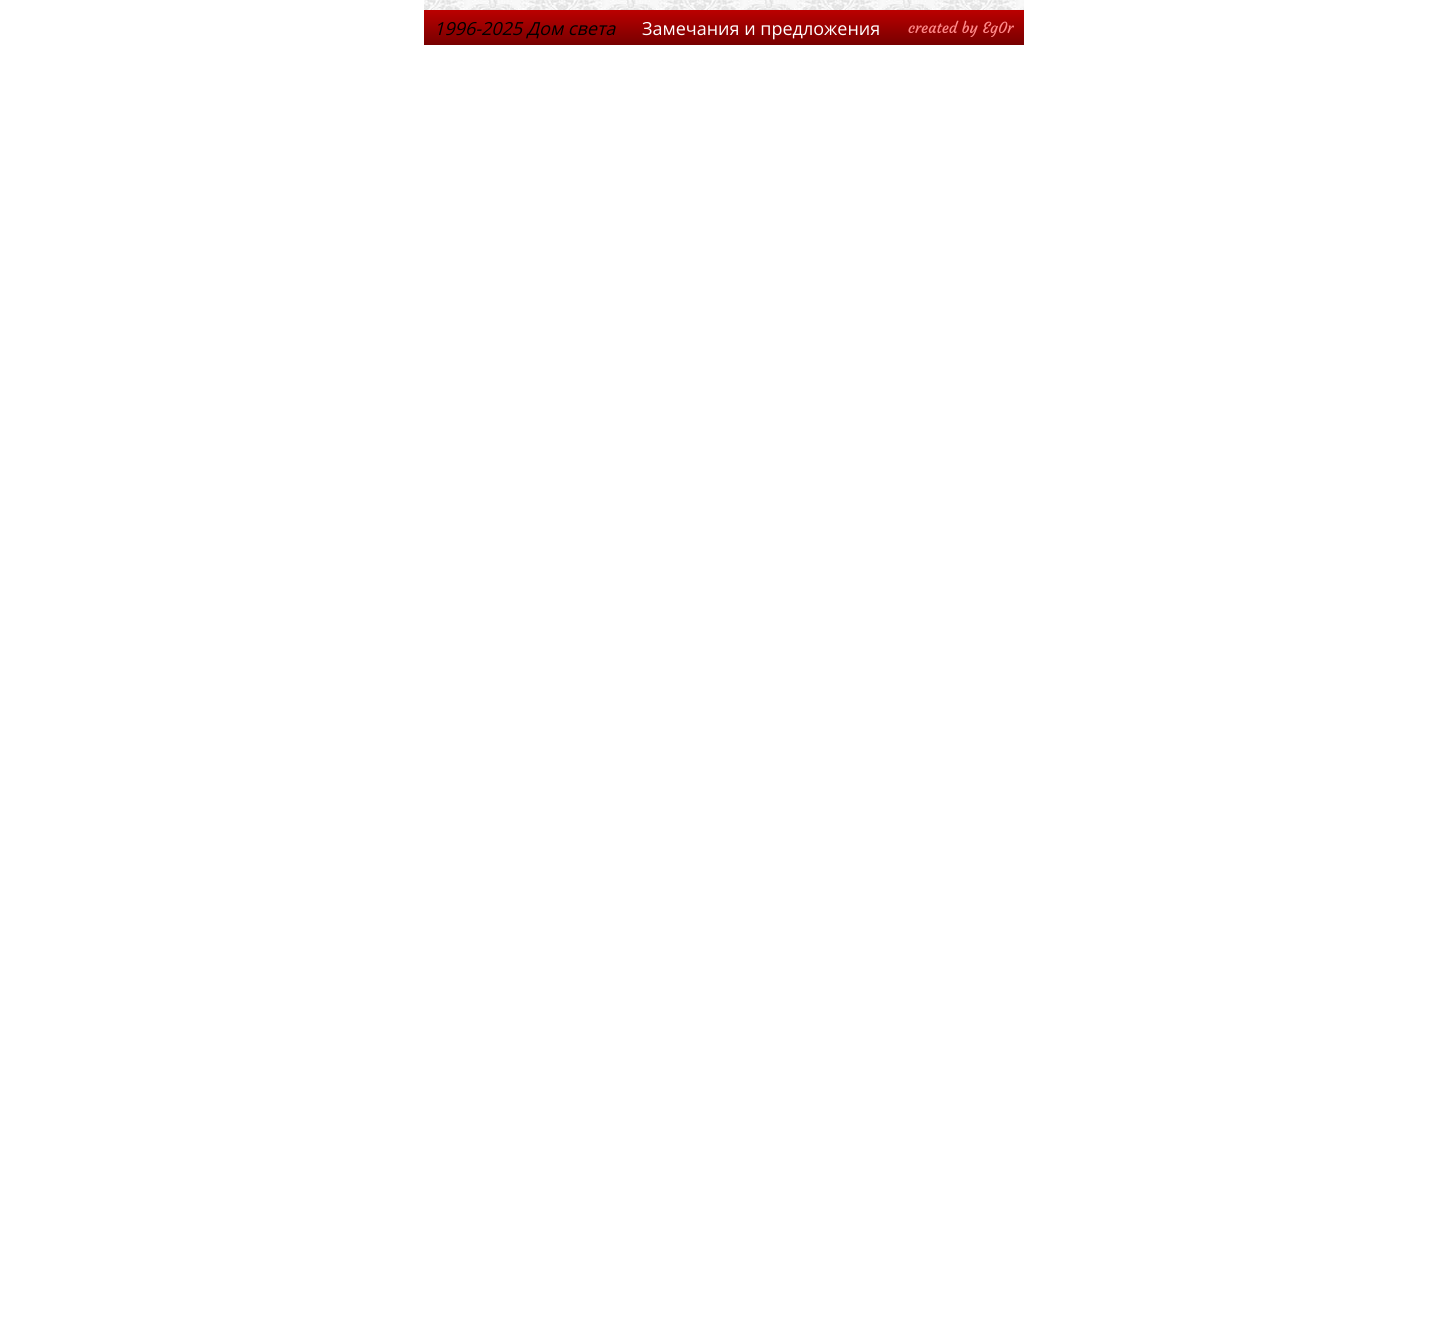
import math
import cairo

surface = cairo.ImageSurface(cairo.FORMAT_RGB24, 1447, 1334)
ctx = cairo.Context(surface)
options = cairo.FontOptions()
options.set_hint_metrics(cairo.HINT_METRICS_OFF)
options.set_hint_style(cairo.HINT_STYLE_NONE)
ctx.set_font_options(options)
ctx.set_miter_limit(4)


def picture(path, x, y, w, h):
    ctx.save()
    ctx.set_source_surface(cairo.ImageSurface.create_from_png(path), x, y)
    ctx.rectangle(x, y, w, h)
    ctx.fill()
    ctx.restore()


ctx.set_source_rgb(1, 1, 1)
ctx.paint()
picture("img1.png", 424, 0, 600, 10)
gradient = cairo.LinearGradient(724, 45, 724, 10)
gradient.add_color_stop_rgba(0, 0.467, 0, 0, 1)
gradient.add_color_stop_rgba(1, 0.733, 0, 0, 1)
ctx.set_source(gradient)
ctx.rectangle(424, 10, 600, 35)
ctx.fill()
ctx.select_font_face("Open Sans", cairo.FONT_SLANT_ITALIC)
ctx.set_font_size(18)
ctx.set_source_rgb(0, 0, 0)
ctx.move_to(434, 35)
ctx.show_text("1996-2025 Дом света")
ctx.select_font_face("Open Sans")
ctx.set_source_rgb(1, 1, 1)
ctx.move_to(642, 35)
ctx.show_text("Замечания и предложения")
ctx.select_font_face("Courgette")
ctx.set_font_size(15)
ctx.set_source_rgb(1, 0.541, 0.541)
ctx.move_to(908, 33)
ctx.show_text("created by Eg0r")
surface.write_to_png("page.png")
